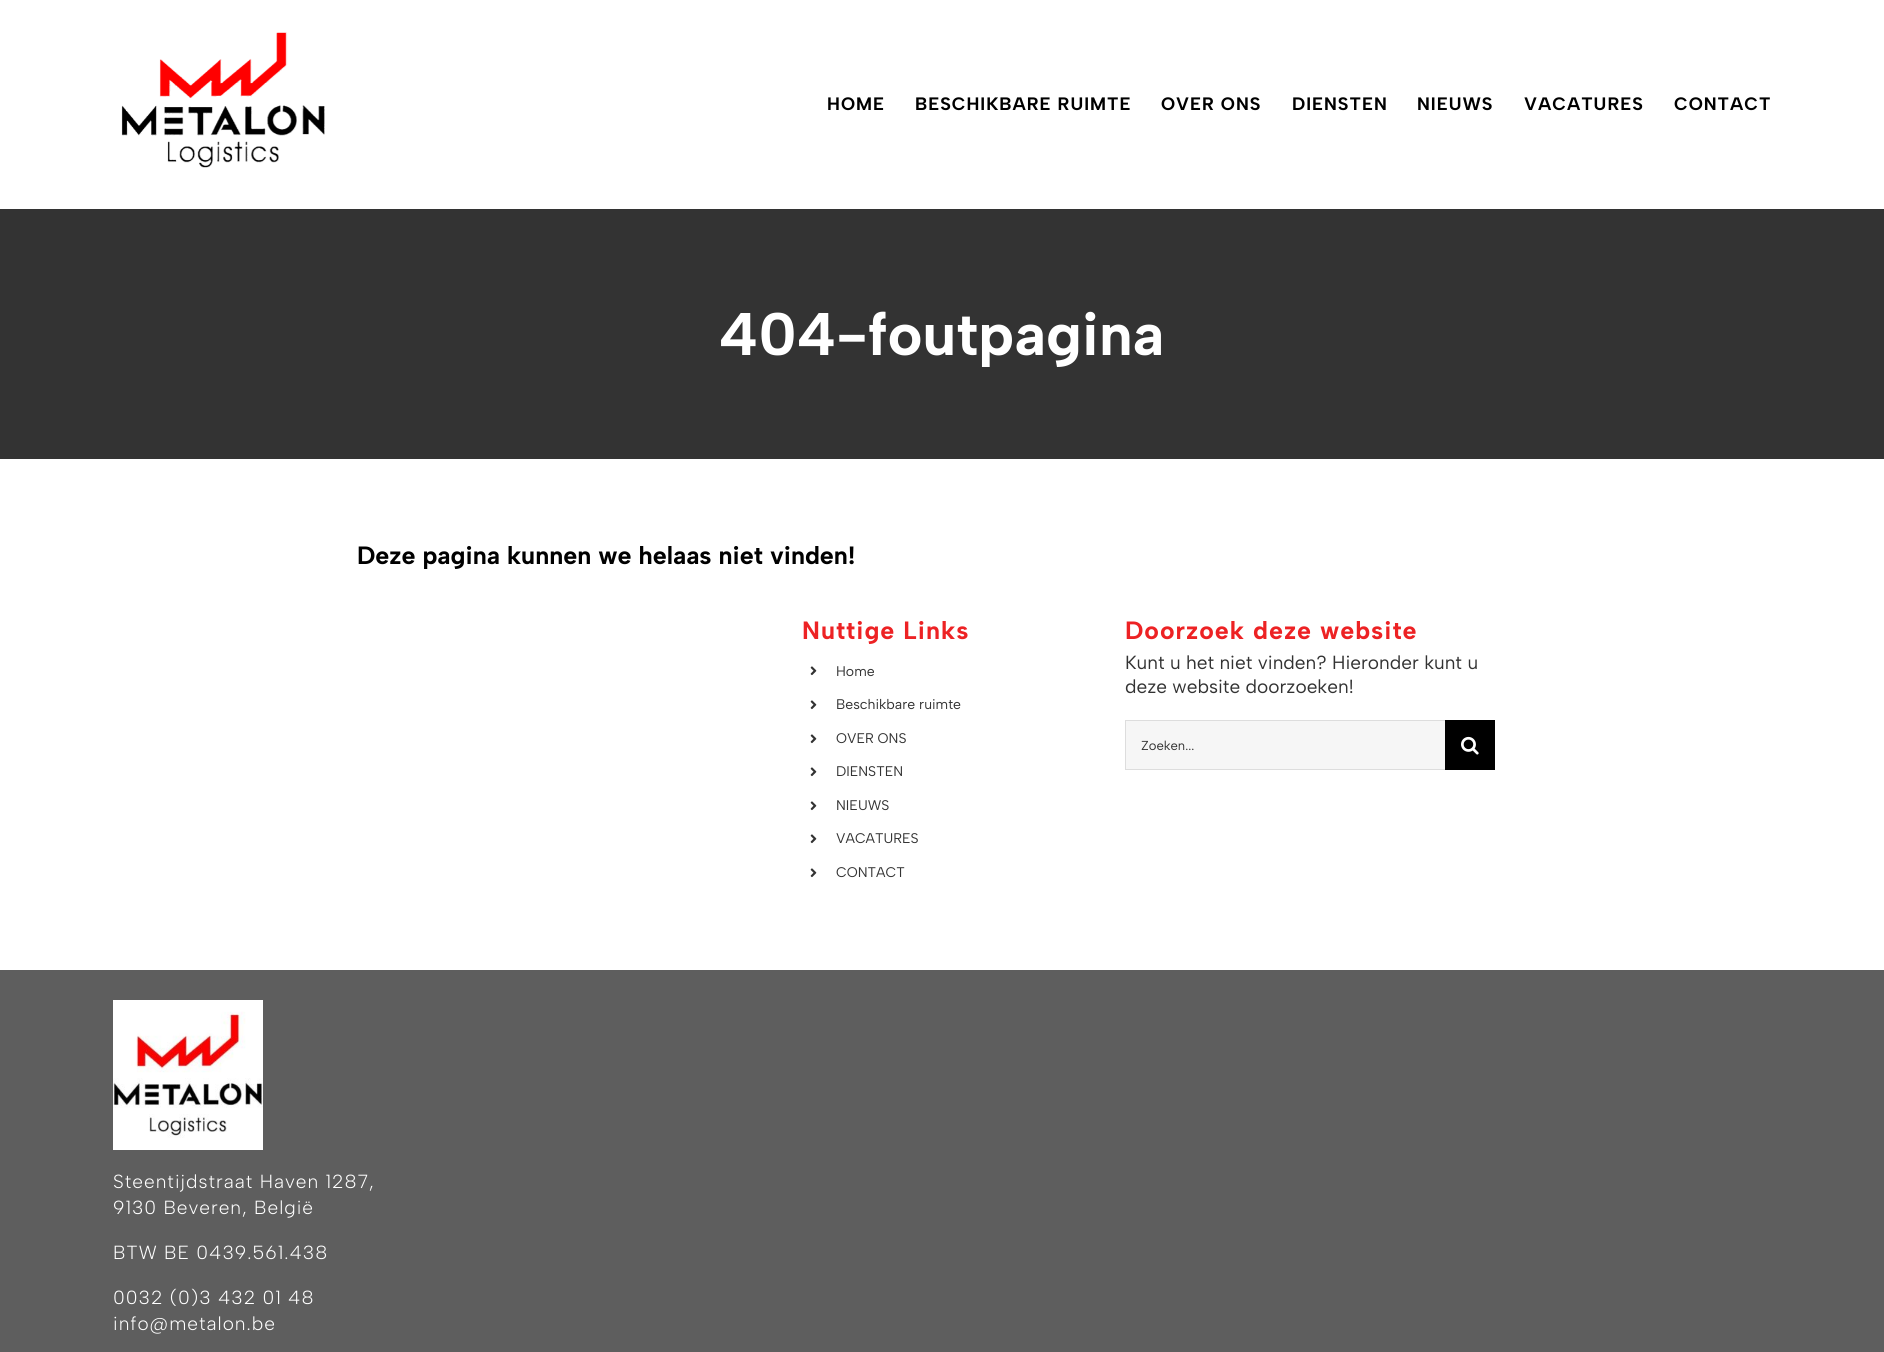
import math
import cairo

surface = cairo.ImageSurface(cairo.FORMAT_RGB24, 1884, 1352)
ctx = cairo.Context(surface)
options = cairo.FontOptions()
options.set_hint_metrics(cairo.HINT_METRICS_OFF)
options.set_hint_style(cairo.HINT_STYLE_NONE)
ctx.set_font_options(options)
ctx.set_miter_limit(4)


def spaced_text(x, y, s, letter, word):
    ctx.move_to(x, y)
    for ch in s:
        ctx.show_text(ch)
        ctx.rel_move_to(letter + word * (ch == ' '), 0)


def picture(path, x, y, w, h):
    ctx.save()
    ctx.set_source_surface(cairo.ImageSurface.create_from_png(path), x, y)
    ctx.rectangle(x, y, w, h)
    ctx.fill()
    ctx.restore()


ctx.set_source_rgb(1, 1, 1)
ctx.paint()
picture("img1.png", 121, 32, 204, 136)
ctx.select_font_face("Albert Sans", cairo.FONT_SLANT_NORMAL, cairo.FONT_WEIGHT_BOLD)
ctx.set_font_size(18)
ctx.set_source_rgb(0, 0, 0)
spaced_text(827, 110, "HOME", 1, 0)
spaced_text(915, 110, "BESCHIKBARE RUIMTE", 1, 0)
spaced_text(1161, 110, "OVER ONS", 1, 0)
spaced_text(1292, 110, "DIENSTEN", 1, 0)
spaced_text(1417, 110, "NIEUWS", 1, 0)
spaced_text(1524, 110, "VACATURES", 1, 0)
spaced_text(1674, 110, "CONTACT", 1, 0)
ctx.set_source_rgb(0.2, 0.2, 0.2)
ctx.rectangle(0, 209, 1884, 250)
ctx.fill()
ctx.set_font_size(60)
ctx.set_source_rgb(1, 1, 1)
ctx.move_to(719, 355)
ctx.show_text("404-foutpagina")
ctx.set_font_size(25)
ctx.set_source_rgb(0, 0, 0)
ctx.move_to(357, 564)
ctx.show_text("Deze pagina kunnen we helaas niet vinden!")
ctx.set_source_rgb(0.929, 0.133, 0.141)
spaced_text(802, 639, "Nuttige Links", 1, 0)
picture("img2.png", 810, 666, 7, 10)
ctx.select_font_face("Albert Sans")
ctx.set_font_size(14)
ctx.set_source_rgb(0.2, 0.2, 0.2)
ctx.move_to(836, 676)
ctx.show_text("Home")
picture("img2.png", 810, 700, 7, 10)
ctx.move_to(836, 709)
ctx.show_text("Beschikbare ruimte")
picture("img2.png", 810, 734, 7, 10)
ctx.move_to(836, 743)
ctx.show_text("OVER ONS")
picture("img2.png", 810, 767, 7, 10)
ctx.move_to(836, 776)
ctx.show_text("DIENSTEN")
picture("img2.png", 810, 801, 7, 10)
ctx.move_to(836, 810)
ctx.show_text("NIEUWS")
picture("img2.png", 810, 834, 7, 10)
ctx.move_to(836, 843)
ctx.show_text("VACATURES")
picture("img2.png", 810, 868, 7, 10)
ctx.move_to(836, 877)
ctx.show_text("CONTACT")
ctx.select_font_face("Albert Sans", cairo.FONT_SLANT_NORMAL, cairo.FONT_WEIGHT_BOLD)
ctx.set_font_size(25)
ctx.set_source_rgb(0.929, 0.133, 0.141)
spaced_text(1125, 639, "Doorzoek deze website", 1, 0)
ctx.select_font_face("Albert Sans")
ctx.set_font_size(19)
ctx.set_source_rgb(0.2, 0.2, 0.2)
ctx.move_to(1125, 669)
ctx.show_text("Kunt u het niet vinden? Hieronder kunt u")
ctx.move_to(1125, 693)
ctx.show_text("deze website doorzoeken!")
ctx.set_source_rgb(0.961, 0.961, 0.961)
ctx.rectangle(1126, 721, 319, 48)
ctx.fill()
ctx.set_source_rgb(0.867, 0.867, 0.867)
ctx.rectangle(1125, 720, 320, 1)
ctx.fill()
ctx.rectangle(1125, 769, 320, 1)
ctx.fill()
ctx.rectangle(1125, 720, 1, 50)
ctx.fill()
ctx.set_font_size(13)
ctx.set_source_rgb(0.2, 0.2, 0.2)
ctx.move_to(1141, 750)
ctx.show_text("Zoeken...")
ctx.set_source_rgb(0, 0, 0)
ctx.rectangle(1445, 720, 50, 50)
ctx.fill()
picture("img3.png", 1461, 736, 18, 19)
ctx.set_source_rgb(0.369, 0.369, 0.369)
ctx.rectangle(0, 970, 1884, 382)
ctx.fill()
picture("img4.png", 113, 1000, 150, 150)
ctx.select_font_face("Albert Sans Light")
ctx.set_font_size(19)
ctx.set_source_rgb(1, 1, 1)
spaced_text(113, 1188, "Steentijdstraat Haven 1287,", 1, 0)
spaced_text(113, 1214, "9130 Beveren, België", 1, 0)
spaced_text(113, 1259, "BTW BE 0439.561.438", 1, 0)
spaced_text(113, 1304, "0032 (0)3 432 01 48", 1, 0)
spaced_text(113, 1330, "info@metalon.be", 1, 0)
surface.write_to_png("page.png")
